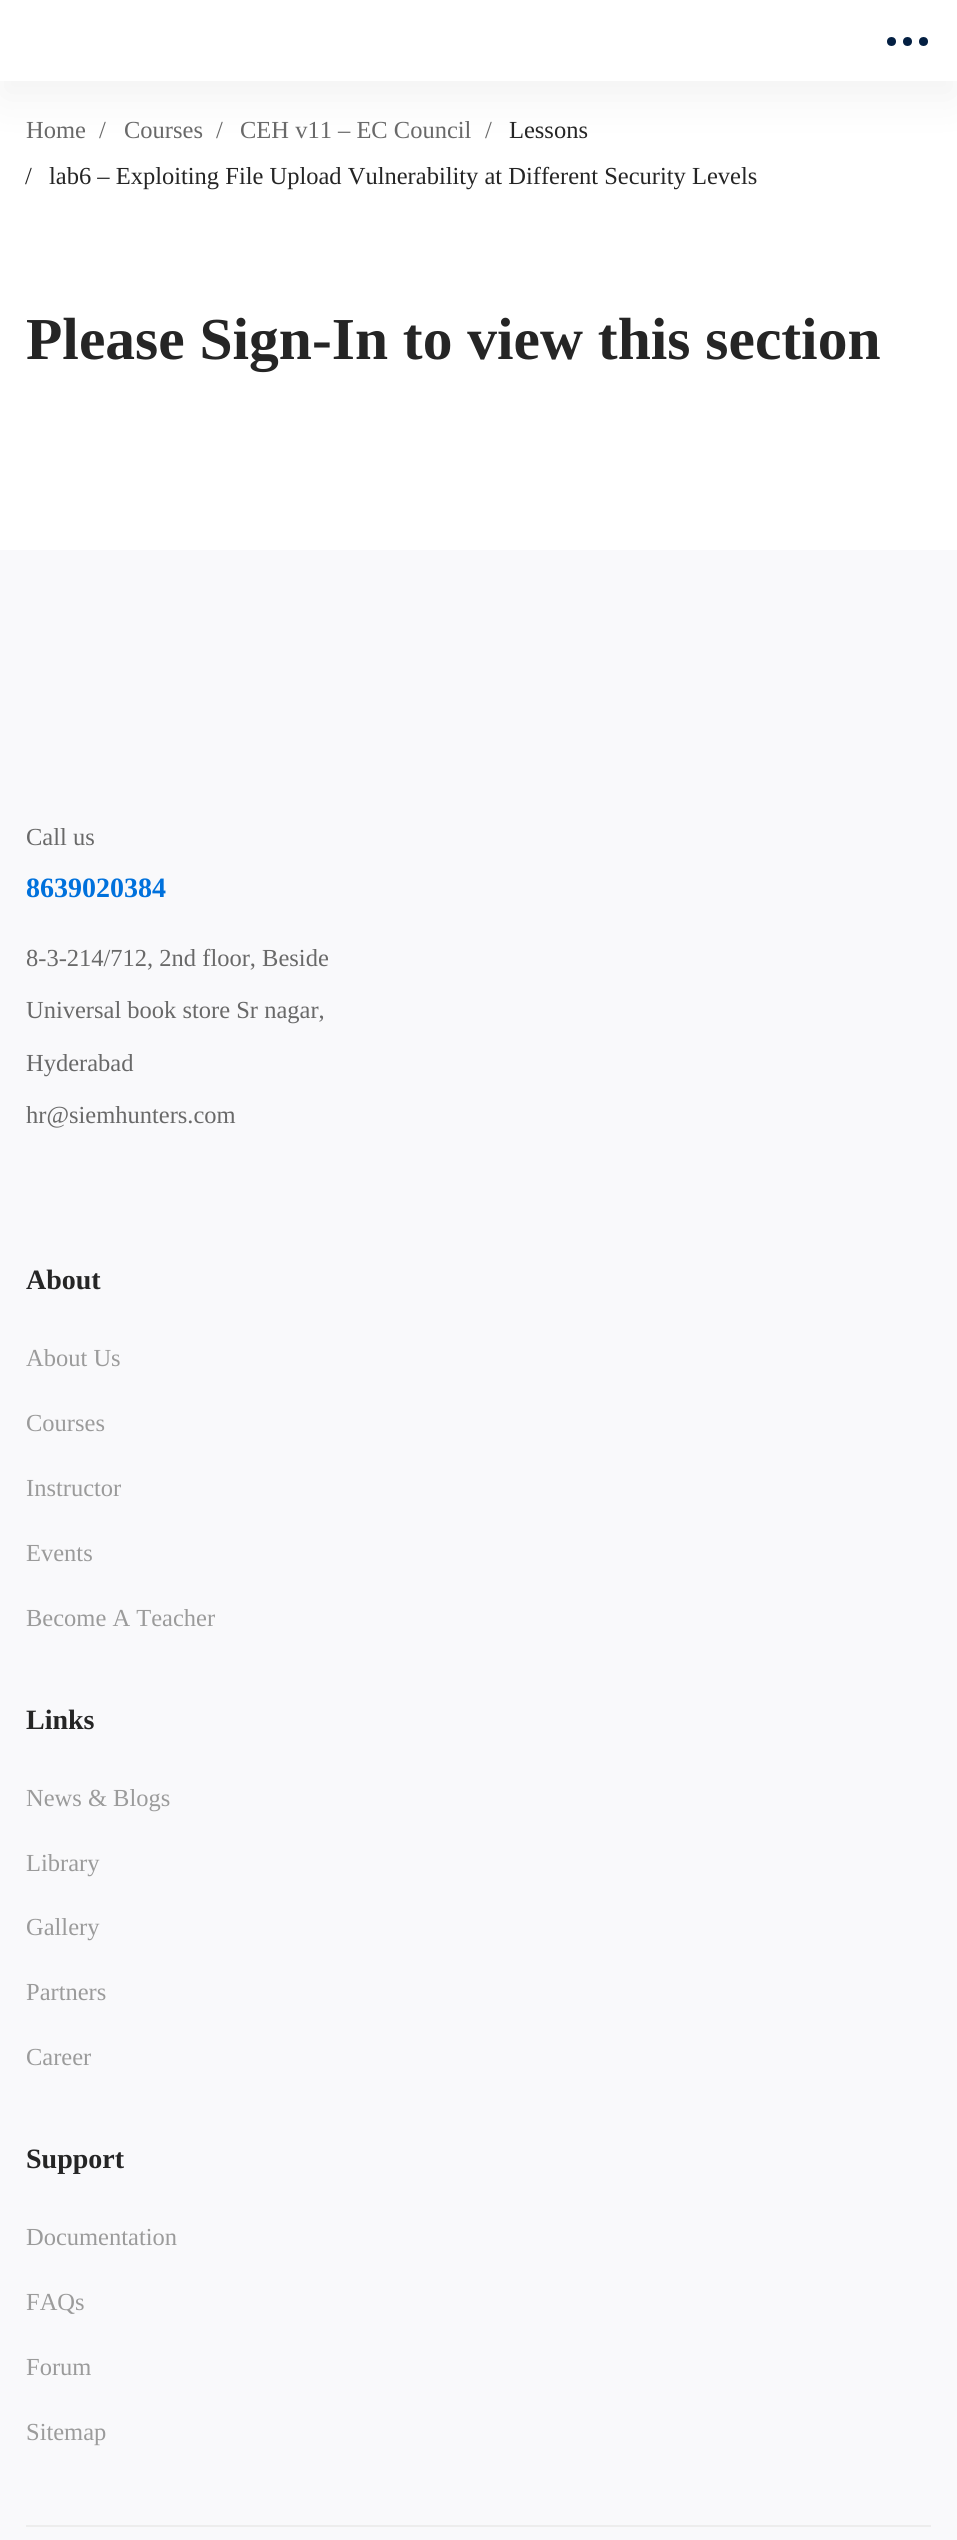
import math
import cairo

surface = cairo.ImageSurface(cairo.FORMAT_RGB24, 957, 2540)
ctx = cairo.Context(surface)
options = cairo.FontOptions()
options.set_hint_metrics(cairo.HINT_METRICS_OFF)
options.set_hint_style(cairo.HINT_STYLE_NONE)
ctx.set_font_options(options)
ctx.set_miter_limit(4)


def round_rect(x, y, w, h, r):
    ctx.new_sub_path()
    for i, (u, v) in enumerate([(x + w - r, y + h - r), (x + r, y + h - r), (x + r, y + r), (x + w - r, y + r)]):
        ctx.arc(u, v, r, i * math.pi / 2, (i + 1) * math.pi / 2)
    ctx.close_path()


def shadow(x, y, w, h, r, blur, alpha):
    ctx.push_group_with_content(cairo.CONTENT_ALPHA)
    ctx.set_operator(cairo.OPERATOR_SOURCE)
    for i in range(15, -16, -2):
        e = blur * i / 6
        if min(w, h) + 2 * e > 0:
            ctx.set_source_rgba(0, 0, 0, alpha * math.erfc((i - 1) / 8.5) / 2)
            round_rect(x - e, y - e, w + 2 * e, h + 2 * e, max(0, min(r + e + blur * .6, min(w, h) / 2 + e)))
            ctx.fill()
    ctx.mask(ctx.pop_group())


ctx.set_source_rgb(1, 1, 1)
ctx.paint()
ctx.set_source_rgb(0, 0, 0)
shadow(0, 18, 957, 80, 0, 23, 0.05)
ctx.set_source_rgb(1, 1, 1)
ctx.rectangle(0, 0, 957, 81)
ctx.fill()
ctx.set_source_rgb(0.012, 0.122, 0.259)
ctx.arc(891.5, 41.5, 4.5, 0, 2 * math.pi)
ctx.fill()
ctx.arc(907.5, 41.5, 4.5, 0, 2 * math.pi)
ctx.fill()
ctx.arc(923.5, 41.5, 4.5, 0, 2 * math.pi)
ctx.fill()
ctx.select_font_face("Liberation Serif")
ctx.set_font_size(24.5)
ctx.set_source_rgb(0.412, 0.412, 0.412)
ctx.move_to(26, 138)
ctx.show_text("Home")
ctx.move_to(99, 138)
ctx.show_text("/")
ctx.move_to(124, 138)
ctx.show_text("Courses")
ctx.move_to(216, 138)
ctx.show_text("/")
ctx.move_to(240, 138)
ctx.show_text("CEH v11 – EC Council")
ctx.move_to(485, 138)
ctx.show_text("/")
ctx.set_source_rgb(0.145, 0.145, 0.145)
ctx.move_to(509, 138)
ctx.show_text("Lessons")
ctx.move_to(25, 184)
ctx.show_text("/")
ctx.move_to(49, 184)
ctx.show_text("lab6 – Exploiting File Upload Vulnerability at Different Security Levels")
ctx.select_font_face("Liberation Serif", cairo.FONT_SLANT_NORMAL, cairo.FONT_WEIGHT_BOLD)
ctx.set_font_size(59.5)
ctx.move_to(26, 359)
ctx.show_text("Please Sign-In to view this section")
ctx.set_source_rgb(0.976, 0.976, 0.984)
ctx.rectangle(0, 550, 957, 1990)
ctx.fill()
ctx.select_font_face("Liberation Serif")
ctx.set_font_size(24.5)
ctx.set_source_rgb(0.412, 0.412, 0.412)
ctx.move_to(26, 845)
ctx.show_text("Call us")
ctx.select_font_face("Liberation Serif", cairo.FONT_SLANT_NORMAL, cairo.FONT_WEIGHT_BOLD)
ctx.set_font_size(28)
ctx.set_source_rgb(0, 0.443, 0.863)
ctx.move_to(26, 897)
ctx.show_text("8639020384")
ctx.select_font_face("Liberation Serif")
ctx.set_font_size(24.5)
ctx.set_source_rgb(0.412, 0.412, 0.412)
ctx.move_to(26, 966)
ctx.show_text("8-3-214/712, 2nd floor, Beside")
ctx.move_to(26, 1018)
ctx.show_text("Universal book store Sr nagar,")
ctx.move_to(26, 1071)
ctx.show_text("Hyderabad")
ctx.move_to(26, 1123)
ctx.show_text("hr@siemhunters.com")
ctx.select_font_face("Liberation Serif", cairo.FONT_SLANT_NORMAL, cairo.FONT_WEIGHT_BOLD)
ctx.set_font_size(28)
ctx.set_source_rgb(0.145, 0.145, 0.145)
ctx.move_to(26, 1289)
ctx.show_text("About")
ctx.select_font_face("Liberation Serif")
ctx.set_font_size(24.5)
ctx.set_source_rgb(0.608, 0.608, 0.608)
ctx.move_to(26, 1366)
ctx.show_text("About Us")
ctx.move_to(26, 1431)
ctx.show_text("Courses")
ctx.move_to(26, 1496)
ctx.show_text("Instructor")
ctx.move_to(26, 1561)
ctx.show_text("Events")
ctx.move_to(26, 1626)
ctx.show_text("Become A Teacher")
ctx.select_font_face("Liberation Serif", cairo.FONT_SLANT_NORMAL, cairo.FONT_WEIGHT_BOLD)
ctx.set_font_size(28)
ctx.set_source_rgb(0.145, 0.145, 0.145)
ctx.move_to(26, 1729)
ctx.show_text("Links")
ctx.select_font_face("Liberation Serif")
ctx.set_font_size(24.5)
ctx.set_source_rgb(0.608, 0.608, 0.608)
ctx.move_to(26, 1806)
ctx.show_text("News & Blogs")
ctx.move_to(26, 1871)
ctx.show_text("Library")
ctx.move_to(26, 1935)
ctx.show_text("Gallery")
ctx.move_to(26, 2000)
ctx.show_text("Partners")
ctx.move_to(26, 2065)
ctx.show_text("Career")
ctx.select_font_face("Liberation Serif", cairo.FONT_SLANT_NORMAL, cairo.FONT_WEIGHT_BOLD)
ctx.set_font_size(28)
ctx.set_source_rgb(0.145, 0.145, 0.145)
ctx.move_to(26, 2168)
ctx.show_text("Support")
ctx.select_font_face("Liberation Serif")
ctx.set_font_size(24.5)
ctx.set_source_rgb(0.608, 0.608, 0.608)
ctx.move_to(26, 2245)
ctx.show_text("Documentation")
ctx.move_to(26, 2310)
ctx.show_text("FAQs")
ctx.move_to(26, 2375)
ctx.show_text("Forum")
ctx.move_to(26, 2440)
ctx.show_text("Sitemap")
ctx.set_source_rgb(0.929, 0.929, 0.929)
ctx.rectangle(26, 2525, 905, 2)
ctx.fill()
surface.write_to_png("page.png")
